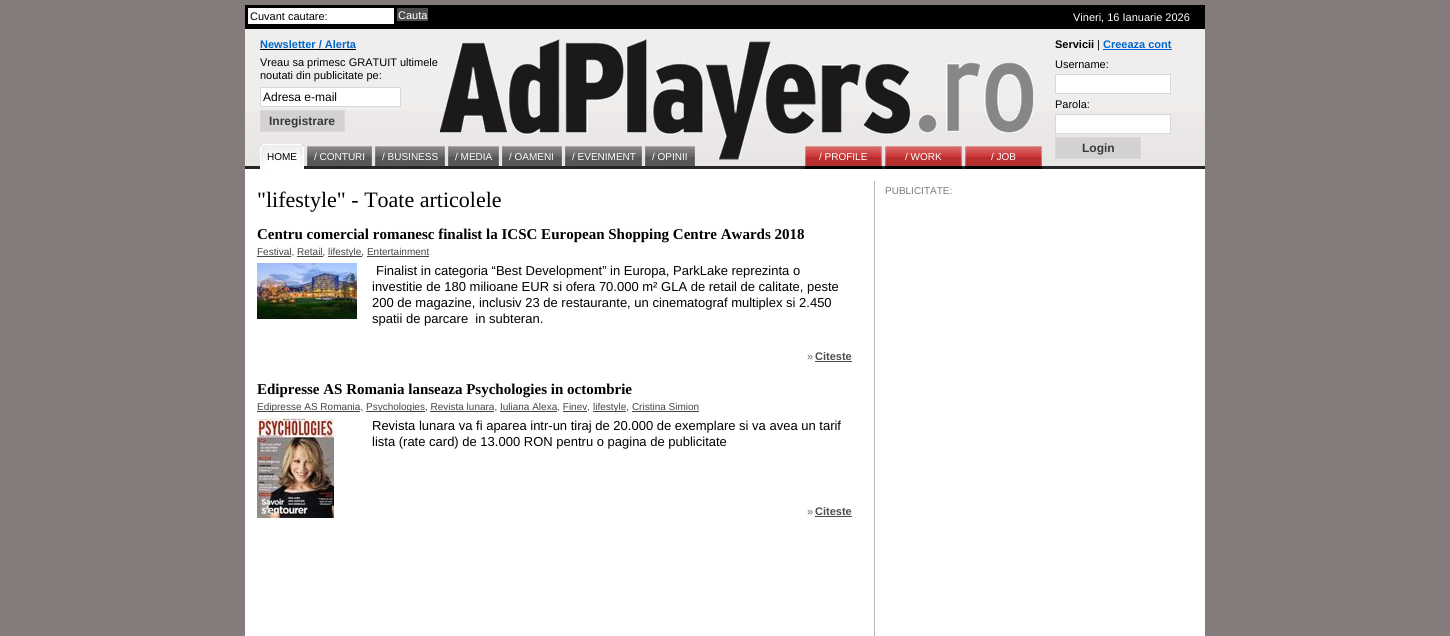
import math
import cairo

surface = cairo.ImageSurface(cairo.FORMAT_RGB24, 1450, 636)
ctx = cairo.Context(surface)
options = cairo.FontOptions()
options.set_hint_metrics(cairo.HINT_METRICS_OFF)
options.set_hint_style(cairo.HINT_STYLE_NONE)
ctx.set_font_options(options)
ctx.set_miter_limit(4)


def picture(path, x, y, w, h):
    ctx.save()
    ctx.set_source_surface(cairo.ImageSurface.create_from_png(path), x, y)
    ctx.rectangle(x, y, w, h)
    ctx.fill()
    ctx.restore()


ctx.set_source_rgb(0.514, 0.486, 0.478)
ctx.paint()
ctx.set_source_rgb(1, 1, 1)
ctx.rectangle(245, 169, 960, 467)
ctx.fill()
ctx.set_source_rgb(0.941, 0.933, 0.929)
ctx.rectangle(245, 29, 960, 82)
ctx.fill()
picture("img1.png", 245, 111, 960, 58)
ctx.set_source_rgb(0, 0, 0)
ctx.rectangle(245, 5, 960, 24)
ctx.fill()
ctx.set_source_rgb(1, 1, 1)
ctx.rectangle(248, 8, 146, 16)
ctx.fill()
ctx.select_font_face("Liberation Sans")
ctx.set_font_size(11)
ctx.set_source_rgb(0, 0, 0)
ctx.move_to(250, 20)
ctx.show_text("Cuvant cautare:")
ctx.set_source_rgb(0.298, 0.298, 0.298)
ctx.rectangle(397, 8, 31, 13)
ctx.fill()
ctx.set_source_rgb(1, 1, 1)
ctx.move_to(398, 19)
ctx.show_text("Cauta")
ctx.move_to(1073, 21)
ctx.show_text("Vineri, 16 Ianuarie 2026")
picture("img2.png", 440, 39, 593, 121)
ctx.select_font_face("Liberation Sans", cairo.FONT_SLANT_NORMAL, cairo.FONT_WEIGHT_BOLD)
ctx.set_source_rgb(0, 0.4, 0.8)
ctx.move_to(260, 48)
ctx.show_text("Newsletter / Alerta")
ctx.set_source_rgb(0, 0, 0)
ctx.rectangle(260, 49, 96, 1)
ctx.fill()
ctx.select_font_face("Liberation Sans")
ctx.move_to(260, 66)
ctx.show_text("Vreau sa primesc GRATUIT ultimele")
ctx.move_to(260, 79)
ctx.show_text("noutati din publicitate pe:")
ctx.set_source_rgb(1, 1, 1)
ctx.rectangle(260.5, 87.5, 140, 19)
ctx.fill_preserve()
ctx.set_source_rgb(0.851, 0.847, 0.839)
ctx.set_line_width(1)
ctx.stroke()
ctx.set_font_size(12)
ctx.set_source_rgb(0, 0, 0)
ctx.move_to(263, 101)
ctx.show_text("Adresa e-mail")
ctx.set_source_rgb(0.827, 0.824, 0.82)
ctx.rectangle(260.5, 110.5, 84, 21)
ctx.fill_preserve()
ctx.set_source_rgb(0.851, 0.847, 0.839)
ctx.stroke()
ctx.select_font_face("Liberation Sans", cairo.FONT_SLANT_NORMAL, cairo.FONT_WEIGHT_BOLD)
ctx.set_source_rgb(0.22, 0.22, 0.22)
ctx.move_to(269, 125)
ctx.show_text("Inregistrare")
ctx.set_font_size(11)
ctx.set_source_rgb(0, 0, 0)
ctx.move_to(1055, 48)
ctx.show_text("Servicii")
ctx.select_font_face("Liberation Sans")
ctx.move_to(1097, 48)
ctx.show_text("|")
ctx.select_font_face("Liberation Sans", cairo.FONT_SLANT_NORMAL, cairo.FONT_WEIGHT_BOLD)
ctx.set_source_rgb(0, 0.4, 0.8)
ctx.move_to(1103, 48)
ctx.show_text("Creeaza cont")
ctx.rectangle(1103, 49, 69, 1)
ctx.fill()
ctx.select_font_face("Liberation Sans")
ctx.set_source_rgb(0, 0, 0)
ctx.move_to(1055, 68)
ctx.show_text("Username:")
ctx.set_source_rgb(1, 1, 1)
ctx.rectangle(1055.5, 74.5, 115, 19)
ctx.fill_preserve()
ctx.set_source_rgb(0.851, 0.847, 0.839)
ctx.stroke()
ctx.set_source_rgb(0, 0, 0)
ctx.move_to(1055, 108)
ctx.show_text("Parola:")
ctx.set_source_rgb(1, 1, 1)
ctx.rectangle(1055.5, 114.5, 115, 19)
ctx.fill_preserve()
ctx.set_source_rgb(0.851, 0.847, 0.839)
ctx.stroke()
ctx.set_source_rgb(0.827, 0.824, 0.82)
ctx.rectangle(1055.5, 137.5, 85, 21)
ctx.fill_preserve()
ctx.set_source_rgb(0.851, 0.847, 0.839)
ctx.stroke()
ctx.select_font_face("Liberation Sans", cairo.FONT_SLANT_NORMAL, cairo.FONT_WEIGHT_BOLD)
ctx.set_font_size(12)
ctx.set_source_rgb(0.22, 0.22, 0.22)
ctx.move_to(1082, 152)
ctx.show_text("Login")
picture("img3.png", 260, 144, 44, 25)
picture("img4.png", 300, 144, 4, 24)
ctx.select_font_face("Liberation Sans")
ctx.set_font_size(10)
ctx.set_source_rgb(0, 0, 0)
ctx.move_to(267, 160)
ctx.show_text("HOME")
picture("img5.png", 307, 146, 63, 20)
picture("img6.png", 370, 146, 2, 20)
ctx.set_source_rgb(1, 1, 1)
ctx.move_to(314, 160)
ctx.show_text("/ CONTURI")
picture("img7.png", 375, 146, 68, 20)
picture("img6.png", 443, 146, 2, 20)
ctx.move_to(382, 160)
ctx.show_text("/ BUSINESS")
picture("img8.png", 448, 146, 49, 20)
picture("img6.png", 497, 146, 2, 20)
ctx.move_to(455, 160)
ctx.show_text("/ MEDIA")
picture("img9.png", 502, 146, 58, 20)
picture("img6.png", 560, 146, 2, 20)
ctx.move_to(509, 160)
ctx.show_text("/ OAMENI")
picture("img10.png", 565, 146, 75, 20)
picture("img6.png", 640, 146, 2, 20)
ctx.move_to(572, 160)
ctx.show_text("/ EVENIMENT")
picture("img11.png", 645, 146, 48, 20)
picture("img6.png", 693, 146, 2, 20)
ctx.move_to(652, 160)
ctx.show_text("/ OPINII")
picture("img12.png", 881, 166, 1, 3)
picture("img13.png", 805, 146, 76, 23)
picture("img14.png", 879, 146, 3, 20)
ctx.move_to(819, 160)
ctx.show_text("/ PROFILE")
picture("img12.png", 961, 166, 1, 3)
picture("img13.png", 885, 146, 76, 23)
picture("img14.png", 959, 146, 3, 20)
ctx.move_to(905, 160)
ctx.show_text("/ WORK")
picture("img12.png", 1041, 166, 1, 3)
picture("img13.png", 965, 146, 76, 23)
picture("img14.png", 1039, 146, 3, 20)
ctx.move_to(991, 160)
ctx.show_text("/ JOB")
ctx.set_source_rgb(0.718, 0.718, 0.718)
ctx.rectangle(874, 181, 1, 455)
ctx.fill()
ctx.select_font_face("Liberation Serif")
ctx.set_font_size(22)
ctx.set_source_rgb(0, 0, 0)
ctx.move_to(257, 207)
ctx.show_text("\"lifestyle\" - Toate articolele")
ctx.select_font_face("Liberation Serif", cairo.FONT_SLANT_NORMAL, cairo.FONT_WEIGHT_BOLD)
ctx.set_font_size(15)
ctx.move_to(257, 239)
ctx.show_text("Centru comercial romanesc finalist la ICSC European Shopping Centre Awards 2018")
ctx.set_source_rgb(0.267, 0.267, 0.267)
ctx.rectangle(257, 256, 34, 1)
ctx.fill()
ctx.select_font_face("Liberation Sans")
ctx.set_font_size(10)
ctx.move_to(257, 255)
ctx.show_text("Festival, Retail,")
ctx.rectangle(328, 256, 34, 1)
ctx.fill()
ctx.move_to(328, 255)
ctx.show_text("lifestyle, Entertainment")
ctx.rectangle(297, 256, 26, 1)
ctx.fill()
ctx.rectangle(367, 256, 62, 1)
ctx.fill()
picture("img15.png", 257, 263, 100, 56)
ctx.set_font_size(13)
ctx.set_source_rgb(0, 0, 0)
ctx.move_to(376, 275)
ctx.show_text("Finalist in categoria “Best Development” in Europa, ParkLake reprezinta o")
ctx.move_to(372, 291)
ctx.show_text("investitie de 180 milioane EUR si ofera 70.000 m² GLA de retail de calitate, peste")
ctx.move_to(372, 307)
ctx.show_text("200 de magazine, inclusiv 23 de restaurante, un cinematograf multiplex si 2.450")
ctx.move_to(372, 323)
ctx.show_text("spatii de parcare  in subteran.")
ctx.set_font_size(11)
ctx.set_source_rgb(0.416, 0.416, 0.416)
ctx.move_to(807, 360)
ctx.show_text("»")
ctx.select_font_face("Liberation Sans", cairo.FONT_SLANT_NORMAL, cairo.FONT_WEIGHT_BOLD)
ctx.set_source_rgb(0.302, 0.302, 0.302)
ctx.move_to(815, 360)
ctx.show_text("Citeste")
ctx.rectangle(815, 361, 37, 1)
ctx.fill()
ctx.select_font_face("Liberation Serif", cairo.FONT_SLANT_NORMAL, cairo.FONT_WEIGHT_BOLD)
ctx.set_font_size(15)
ctx.set_source_rgb(0, 0, 0)
ctx.move_to(257, 394)
ctx.show_text("Edipresse AS Romania lanseaza Psychologies in octombrie")
ctx.set_source_rgb(0.267, 0.267, 0.267)
ctx.rectangle(257, 411, 103, 1)
ctx.fill()
ctx.select_font_face("Liberation Sans")
ctx.set_font_size(10)
ctx.move_to(257, 410)
ctx.show_text("Edipresse AS Romania,")
ctx.rectangle(366, 411, 59, 1)
ctx.fill()
ctx.move_to(366, 410)
ctx.show_text("Psychologies, Revista lunara, Iuliana Alexa, Finev,")
ctx.rectangle(593, 411, 33, 1)
ctx.fill()
ctx.move_to(593, 410)
ctx.show_text("lifestyle, Cristina Simion")
ctx.rectangle(430, 411, 64, 1)
ctx.fill()
ctx.rectangle(500, 411, 57, 1)
ctx.fill()
ctx.rectangle(563, 411, 24, 1)
ctx.fill()
ctx.rectangle(632, 411, 67, 1)
ctx.fill()
picture("img16.png", 257, 418, 77, 100)
ctx.set_font_size(13)
ctx.set_source_rgb(0, 0, 0)
ctx.move_to(372, 430)
ctx.show_text("Revista lunara va fi aparea intr-un tiraj de 20.000 de exemplare si va avea un tarif")
ctx.move_to(372, 446)
ctx.show_text("lista (rate card) de 13.000 RON pentru o pagina de publicitate")
ctx.set_font_size(11)
ctx.set_source_rgb(0.416, 0.416, 0.416)
ctx.move_to(807, 515)
ctx.show_text("»")
ctx.select_font_face("Liberation Sans", cairo.FONT_SLANT_NORMAL, cairo.FONT_WEIGHT_BOLD)
ctx.set_source_rgb(0.302, 0.302, 0.302)
ctx.move_to(815, 515)
ctx.show_text("Citeste")
ctx.rectangle(815, 516, 37, 1)
ctx.fill()
ctx.select_font_face("Liberation Sans")
ctx.set_font_size(10)
ctx.set_source_rgb(0.482, 0.482, 0.482)
ctx.move_to(885, 194)
ctx.show_text("PUBLICITATE:")
surface.write_to_png("page.png")
